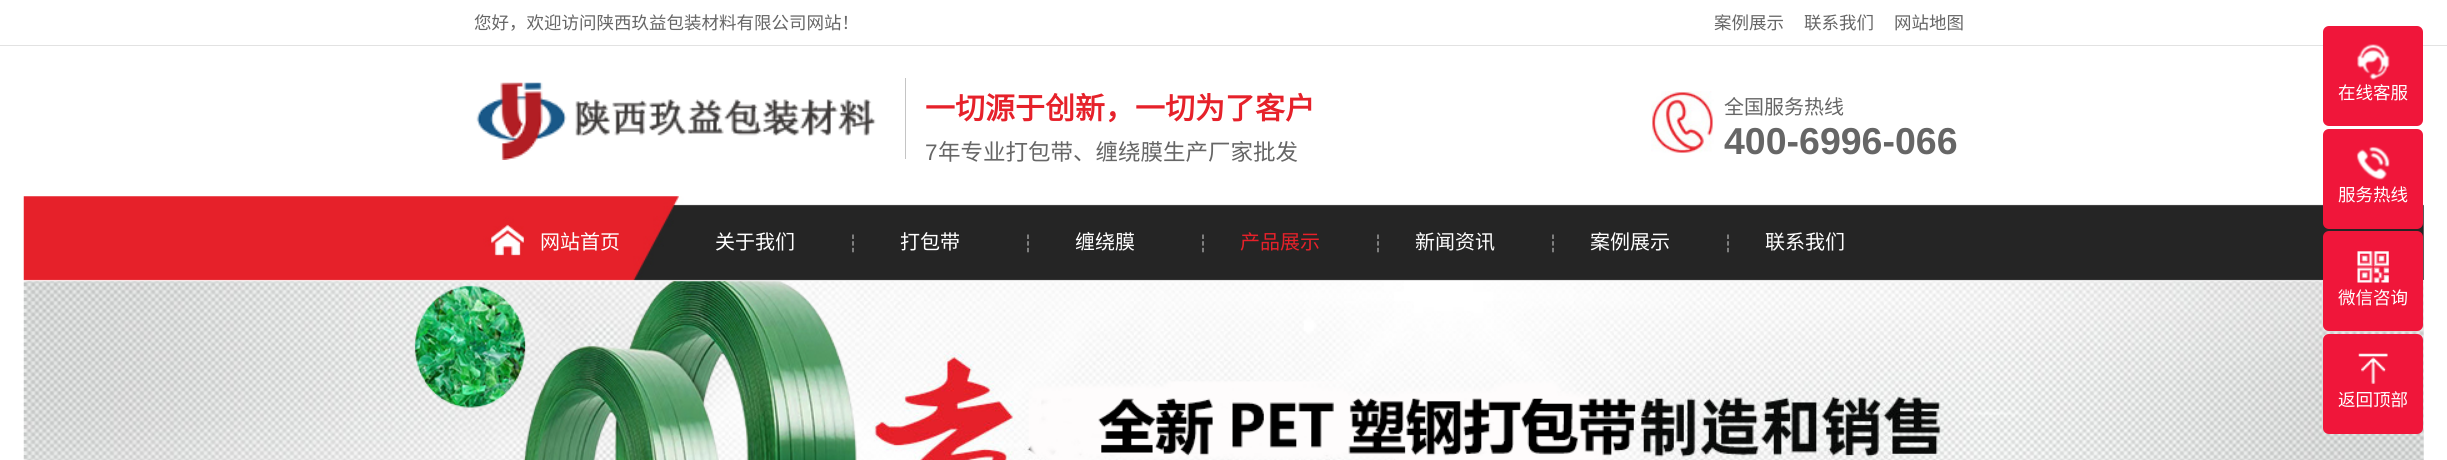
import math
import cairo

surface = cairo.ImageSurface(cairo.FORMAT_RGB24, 2447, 460)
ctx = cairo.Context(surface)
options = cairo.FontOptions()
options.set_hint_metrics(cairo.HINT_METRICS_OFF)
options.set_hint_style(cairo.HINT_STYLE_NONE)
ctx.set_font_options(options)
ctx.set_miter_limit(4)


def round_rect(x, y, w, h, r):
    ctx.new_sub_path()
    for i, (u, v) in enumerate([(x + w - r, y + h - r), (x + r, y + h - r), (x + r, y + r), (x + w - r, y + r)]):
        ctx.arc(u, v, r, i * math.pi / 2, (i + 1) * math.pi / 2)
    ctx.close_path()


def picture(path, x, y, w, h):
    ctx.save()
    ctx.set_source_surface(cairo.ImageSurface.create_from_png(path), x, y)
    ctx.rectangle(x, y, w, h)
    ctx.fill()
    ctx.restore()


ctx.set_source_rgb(1, 1, 1)
ctx.paint()
ctx.set_source_rgb(0.886, 0.886, 0.886)
ctx.rectangle(0, 45, 2447, 1)
ctx.fill()
ctx.select_font_face("Noto Sans CJK SC")
ctx.set_font_size(17.5)
ctx.set_source_rgb(0.4, 0.4, 0.4)
ctx.move_to(474, 29)
ctx.show_text("您好，欢迎访问陕西玖益包装材料有限公司网站！")
ctx.move_to(1714, 29)
ctx.show_text("案例展示")
ctx.move_to(1804, 29)
ctx.show_text("联系我们")
ctx.move_to(1894, 29)
ctx.show_text("网站地图")
picture("img1.png", 476, 82, 400, 78)
ctx.set_source_rgb(0.769, 0.769, 0.769)
ctx.rectangle(905, 78, 1, 81)
ctx.fill()
ctx.select_font_face("Noto Sans CJK SC", cairo.FONT_SLANT_NORMAL, cairo.FONT_WEIGHT_BOLD)
ctx.set_font_size(30)
ctx.set_source_rgb(0.902, 0.129, 0.165)
ctx.move_to(925, 119)
ctx.show_text("一切源于创新，一切为了客户")
ctx.select_font_face("Liberation Sans")
ctx.set_font_size(22.5)
ctx.set_source_rgb(0.4, 0.4, 0.4)
ctx.move_to(925, 160)
ctx.show_text("7")
ctx.select_font_face("Noto Sans CJK SC")
ctx.move_to(938, 160)
ctx.show_text("年专业打包带、缠绕膜生产厂家批发")
picture("img2.png", 1651, 91, 63, 62)
ctx.set_font_size(20)
ctx.move_to(1724, 114)
ctx.show_text("全国服务热线")
ctx.select_font_face("Liberation Sans", cairo.FONT_SLANT_NORMAL, cairo.FONT_WEIGHT_BOLD)
ctx.set_font_size(37.5)
ctx.move_to(1724, 154)
ctx.show_text("400-6996-066")
ctx.set_source_rgb(0.941, 0.086, 0.227)
round_rect(2323, 26, 100, 100, 6)
ctx.fill()
picture("img3.png", 2357, 44, 33, 36)
ctx.select_font_face("Noto Sans CJK SC")
ctx.set_font_size(17.5)
ctx.set_source_rgb(1, 1, 1)
ctx.move_to(2338, 99)
ctx.show_text("在线客服")
picture("img7.png", 23, 196, 2401, 85)
ctx.set_source_rgb(0.941, 0.086, 0.227)
round_rect(2323, 129, 100, 100, 6)
ctx.fill()
picture("img4.png", 2356, 146, 34, 34)
ctx.set_source_rgb(1, 1, 1)
ctx.move_to(2338, 201)
ctx.show_text("服务热线")
picture("img8.png", 23, 281, 2401, 179)
ctx.set_source_rgb(0.941, 0.086, 0.227)
round_rect(2323, 231, 100, 100, 6)
ctx.fill()
picture("img5.png", 2357, 251, 32, 32)
ctx.set_source_rgb(1, 1, 1)
ctx.move_to(2338, 304)
ctx.show_text("微信咨询")
ctx.set_source_rgb(0.941, 0.086, 0.227)
round_rect(2323, 334, 100, 100, 6)
ctx.fill()
picture("img6.png", 2358, 353, 30, 31)
ctx.set_source_rgb(1, 1, 1)
ctx.move_to(2338, 406)
ctx.show_text("返回顶部")
ctx.set_font_size(20)
ctx.move_to(540, 249)
ctx.show_text("网站首页")
ctx.move_to(715, 249)
ctx.show_text("关于我们")
ctx.move_to(843, 251)
ctx.show_text("┆")
ctx.move_to(900, 249)
ctx.show_text("打包带")
ctx.move_to(1018, 251)
ctx.show_text("┆")
ctx.move_to(1075, 249)
ctx.show_text("缠绕膜")
ctx.move_to(1193, 251)
ctx.show_text("┆")
ctx.set_source_rgb(0.902, 0.129, 0.165)
ctx.move_to(1240, 249)
ctx.show_text("产品展示")
ctx.set_source_rgb(1, 1, 1)
ctx.move_to(1368, 251)
ctx.show_text("┆")
ctx.move_to(1415, 249)
ctx.show_text("新闻资讯")
ctx.move_to(1543, 251)
ctx.show_text("┆")
ctx.move_to(1590, 249)
ctx.show_text("案例展示")
ctx.move_to(1718, 251)
ctx.show_text("┆")
ctx.move_to(1765, 249)
ctx.show_text("联系我们")
surface.write_to_png("page.png")
